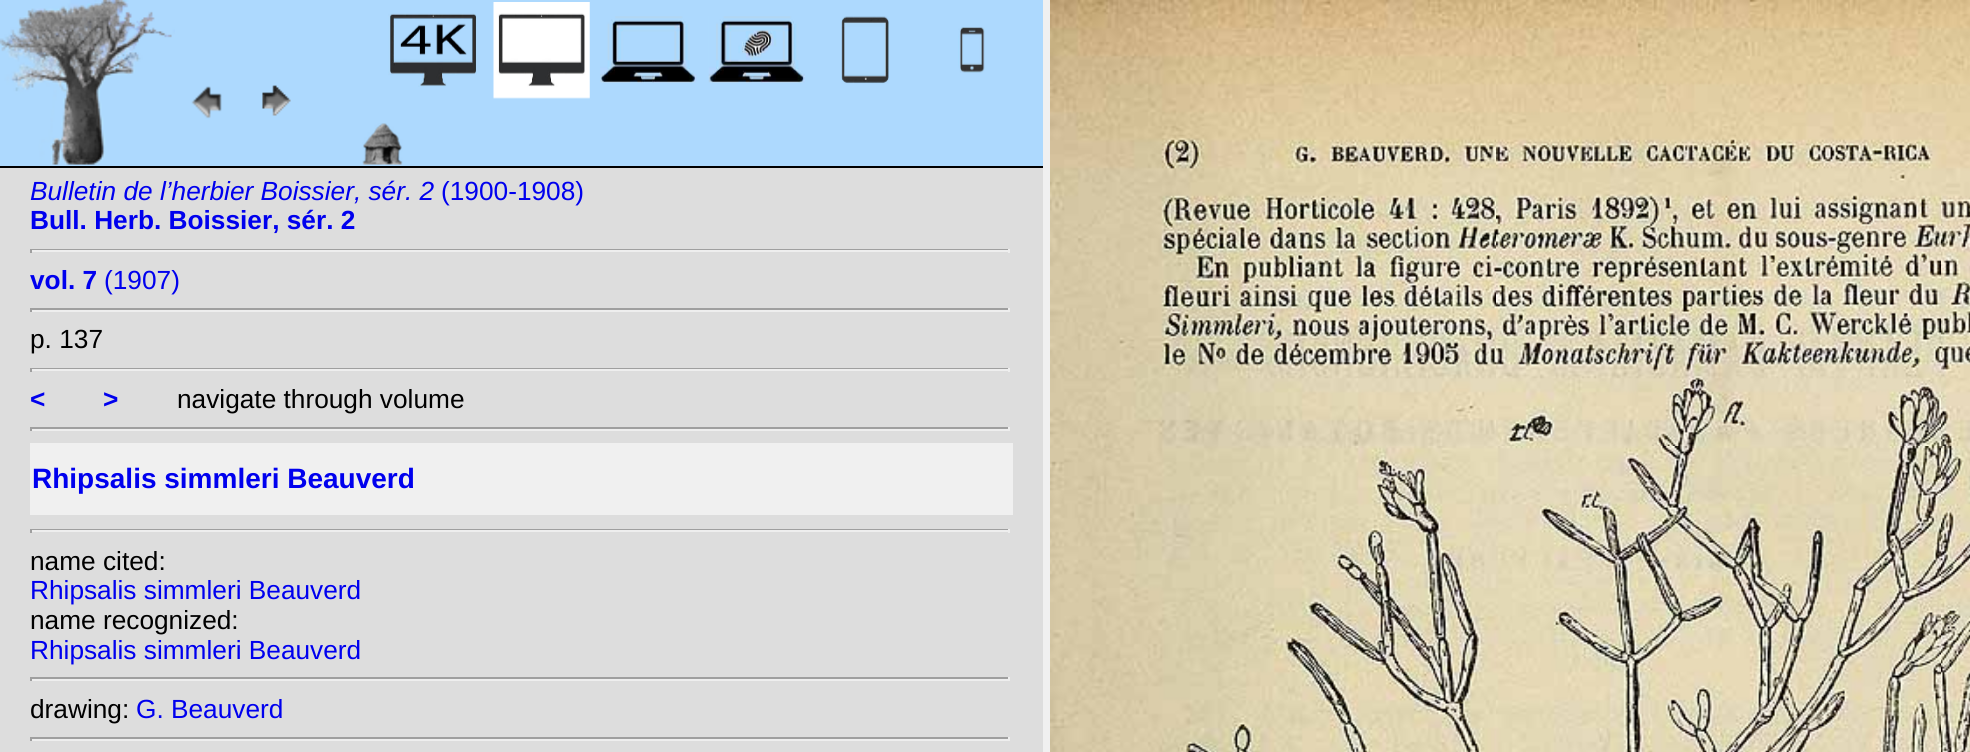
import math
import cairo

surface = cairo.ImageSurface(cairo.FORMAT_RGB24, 1970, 752)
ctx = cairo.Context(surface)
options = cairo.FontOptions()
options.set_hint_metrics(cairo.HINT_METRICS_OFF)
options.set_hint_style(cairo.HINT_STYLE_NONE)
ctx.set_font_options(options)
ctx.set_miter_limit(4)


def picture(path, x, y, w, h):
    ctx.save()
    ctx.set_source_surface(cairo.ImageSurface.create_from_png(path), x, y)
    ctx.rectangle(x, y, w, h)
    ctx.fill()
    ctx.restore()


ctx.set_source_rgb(0.941, 0.941, 0.941)
ctx.paint()
ctx.set_source_rgb(0.867, 0.867, 0.867)
ctx.rectangle(0, 168, 1043, 584)
ctx.fill()
ctx.set_source_rgb(0.678, 0.851, 0.996)
ctx.rectangle(0, 0, 1043, 166)
ctx.fill()
ctx.set_source_rgb(0, 0, 0)
ctx.rectangle(0, 166, 1043, 2)
ctx.fill()
picture("img1.png", 0, 0, 175, 165)
picture("img2.png", 191, 86, 31, 33)
picture("img3.png", 262, 85, 29, 31)
picture("img4.png", 388, 13, 89, 74)
picture("img5.png", 493, 2, 97, 97)
picture("img6.png", 600, 16, 97, 67)
picture("img7.png", 708, 16, 97, 67)
picture("img8.png", 841, 16, 48, 68)
picture("img9.png", 958, 27, 27, 46)
picture("img10.png", 362, 123, 41, 42)
ctx.select_font_face("Liberation Sans", cairo.FONT_SLANT_ITALIC)
ctx.set_font_size(26.25)
ctx.set_source_rgb(0, 0, 0.933)
ctx.move_to(30, 200)
ctx.show_text("Bulletin de l’herbier Boissier, sér. 2")
ctx.select_font_face("Liberation Sans")
ctx.move_to(441, 200)
ctx.show_text("(1900-1908)")
ctx.select_font_face("Liberation Sans", cairo.FONT_SLANT_NORMAL, cairo.FONT_WEIGHT_BOLD)
ctx.move_to(30, 229)
ctx.show_text("Bull. Herb. Boissier, sér. 2")
ctx.set_source_rgb(0.624, 0.624, 0.624)
ctx.rectangle(30, 249, 980, 1)
ctx.fill()
ctx.set_source_rgb(0.933, 0.933, 0.933)
ctx.rectangle(1008, 249, 2, 4)
ctx.fill()
ctx.rectangle(30, 250, 980, 2)
ctx.fill()
ctx.set_source_rgb(0.624, 0.624, 0.624)
ctx.rectangle(30, 249, 2, 4)
ctx.fill()
ctx.set_source_rgb(0, 0, 0.933)
ctx.move_to(30, 289)
ctx.show_text("vol. 7")
ctx.select_font_face("Liberation Sans")
ctx.move_to(104, 289)
ctx.show_text("(1907)")
ctx.set_source_rgb(0.624, 0.624, 0.624)
ctx.rectangle(30, 308, 980, 2)
ctx.fill()
ctx.set_source_rgb(0.933, 0.933, 0.933)
ctx.rectangle(1008, 308, 2, 4)
ctx.fill()
ctx.rectangle(30, 310, 980, 2)
ctx.fill()
ctx.set_source_rgb(0.624, 0.624, 0.624)
ctx.rectangle(30, 308, 2, 4)
ctx.fill()
ctx.set_source_rgb(0, 0, 0)
ctx.move_to(30, 348)
ctx.show_text("p. 137")
ctx.set_source_rgb(0.624, 0.624, 0.624)
ctx.rectangle(30, 368, 980, 1)
ctx.fill()
ctx.set_source_rgb(0.933, 0.933, 0.933)
ctx.rectangle(1008, 368, 2, 4)
ctx.fill()
ctx.rectangle(30, 369, 980, 2)
ctx.fill()
ctx.set_source_rgb(0.624, 0.624, 0.624)
ctx.rectangle(30, 368, 2, 4)
ctx.fill()
ctx.select_font_face("Liberation Sans", cairo.FONT_SLANT_NORMAL, cairo.FONT_WEIGHT_BOLD)
ctx.set_source_rgb(0, 0, 0.933)
ctx.move_to(30, 408)
ctx.show_text("<")
ctx.move_to(103, 408)
ctx.show_text(">")
ctx.select_font_face("Liberation Sans")
ctx.set_source_rgb(0, 0, 0)
ctx.move_to(177, 408)
ctx.show_text("navigate through volume")
ctx.set_source_rgb(0.624, 0.624, 0.624)
ctx.rectangle(30, 427, 980, 2)
ctx.fill()
ctx.set_source_rgb(0.933, 0.933, 0.933)
ctx.rectangle(1008, 427, 2, 4)
ctx.fill()
ctx.rectangle(30, 429, 980, 2)
ctx.fill()
ctx.set_source_rgb(0.624, 0.624, 0.624)
ctx.rectangle(30, 427, 2, 4)
ctx.fill()
ctx.set_source_rgb(0.941, 0.941, 0.941)
ctx.rectangle(30, 443, 983, 72)
ctx.fill()
ctx.select_font_face("Liberation Sans", cairo.FONT_SLANT_NORMAL, cairo.FONT_WEIGHT_BOLD)
ctx.set_font_size(28)
ctx.set_source_rgb(0, 0, 0.933)
ctx.move_to(32, 488)
ctx.show_text("Rhipsalis simmleri Beauverd")
ctx.set_source_rgb(0.624, 0.624, 0.624)
ctx.rectangle(30, 529, 980, 1)
ctx.fill()
ctx.set_source_rgb(0.933, 0.933, 0.933)
ctx.rectangle(1008, 529, 2, 4)
ctx.fill()
ctx.rectangle(30, 530, 980, 2)
ctx.fill()
ctx.set_source_rgb(0.624, 0.624, 0.624)
ctx.rectangle(30, 529, 2, 4)
ctx.fill()
ctx.select_font_face("Liberation Sans")
ctx.set_font_size(26.25)
ctx.set_source_rgb(0, 0, 0)
ctx.move_to(30, 570)
ctx.show_text("name cited:")
ctx.set_source_rgb(0, 0, 0.933)
ctx.move_to(30, 599)
ctx.show_text("Rhipsalis simmleri Beauverd")
ctx.set_source_rgb(0, 0, 0)
ctx.move_to(30, 629)
ctx.show_text("name recognized:")
ctx.set_source_rgb(0, 0, 0.933)
ctx.move_to(30, 659)
ctx.show_text("Rhipsalis simmleri Beauverd")
ctx.set_source_rgb(0.624, 0.624, 0.624)
ctx.rectangle(30, 677, 980, 2)
ctx.fill()
ctx.set_source_rgb(0.933, 0.933, 0.933)
ctx.rectangle(1008, 677, 2, 4)
ctx.fill()
ctx.rectangle(30, 679, 980, 2)
ctx.fill()
ctx.set_source_rgb(0.624, 0.624, 0.624)
ctx.rectangle(30, 677, 2, 4)
ctx.fill()
ctx.set_source_rgb(0, 0, 0)
ctx.move_to(30, 718)
ctx.show_text("drawing:")
ctx.set_source_rgb(0, 0, 0.933)
ctx.move_to(136, 718)
ctx.show_text("G. Beauverd")
ctx.set_source_rgb(0.624, 0.624, 0.624)
ctx.rectangle(30, 737, 980, 2)
ctx.fill()
ctx.set_source_rgb(0.933, 0.933, 0.933)
ctx.rectangle(1008, 737, 2, 4)
ctx.fill()
ctx.rectangle(30, 739, 980, 2)
ctx.fill()
ctx.set_source_rgb(0.624, 0.624, 0.624)
ctx.rectangle(30, 737, 2, 4)
ctx.fill()
picture("img11.png", 1050, 0, 920, 752)
surface.write_to_png("page.png")
